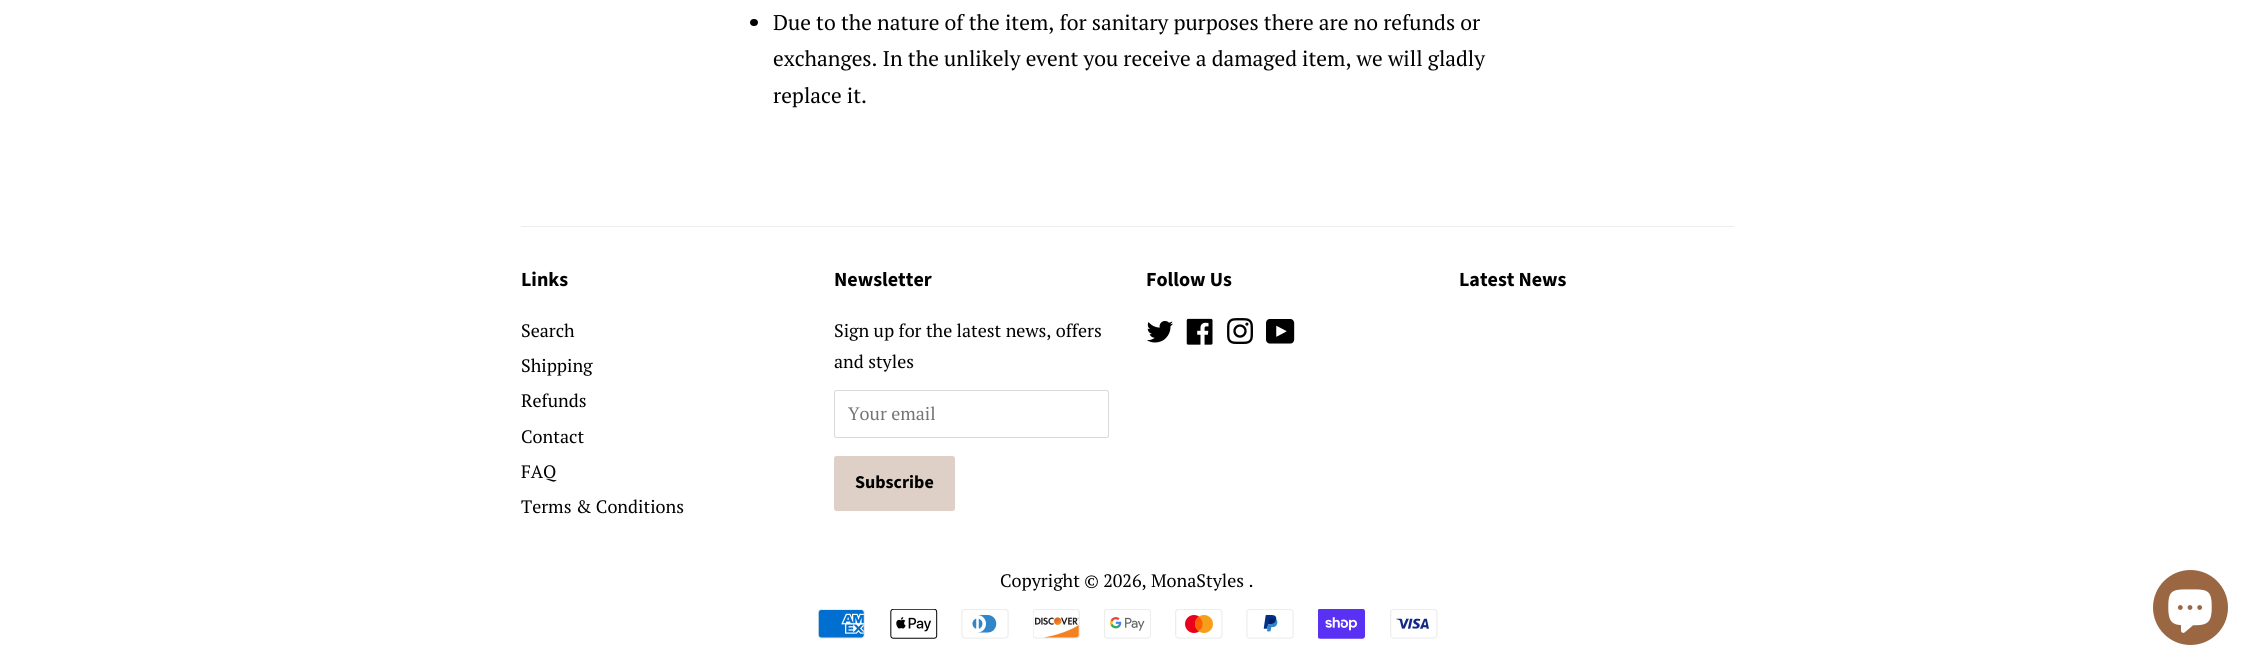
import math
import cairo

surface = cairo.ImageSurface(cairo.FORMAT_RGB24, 2255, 671)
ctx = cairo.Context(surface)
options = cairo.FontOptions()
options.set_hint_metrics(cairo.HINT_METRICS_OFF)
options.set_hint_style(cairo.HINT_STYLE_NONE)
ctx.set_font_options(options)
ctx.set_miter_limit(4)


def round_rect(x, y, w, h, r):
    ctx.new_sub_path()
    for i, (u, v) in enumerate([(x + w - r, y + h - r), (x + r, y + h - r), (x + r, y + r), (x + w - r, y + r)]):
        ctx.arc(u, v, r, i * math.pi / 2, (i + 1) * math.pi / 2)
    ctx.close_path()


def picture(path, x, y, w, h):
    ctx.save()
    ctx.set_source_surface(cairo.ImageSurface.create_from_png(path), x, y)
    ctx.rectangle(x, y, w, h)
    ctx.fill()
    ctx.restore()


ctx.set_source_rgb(1, 1, 1)
ctx.paint()
ctx.set_source_rgb(0, 0, 0)
round_rect(750, 19, 8, 7, 3.5)
ctx.fill()
ctx.select_font_face("PT Serif")
ctx.set_font_size(21.25)
ctx.move_to(773, 30)
ctx.show_text("Due to the nature of the item, for sanitary purposes there are no refunds or")
ctx.move_to(773, 66)
ctx.show_text("exchanges. In the unlikely event you receive a damaged item, we will gladly")
ctx.move_to(773, 103)
ctx.show_text("replace it.")
ctx.set_source_rgb(0.922, 0.922, 0.922)
ctx.rectangle(521, 226, 1213, 1)
ctx.fill()
ctx.select_font_face("Source Sans Pro", cairo.FONT_SLANT_NORMAL, cairo.FONT_WEIGHT_BOLD)
ctx.set_font_size(20)
ctx.set_source_rgb(0, 0, 0)
ctx.move_to(521, 286)
ctx.show_text("Links")
ctx.select_font_face("PT Serif")
ctx.set_font_size(18)
ctx.move_to(521, 337)
ctx.show_text("Search")
ctx.move_to(521, 372)
ctx.show_text("Shipping")
ctx.move_to(521, 407)
ctx.show_text("Refunds")
ctx.move_to(521, 443)
ctx.show_text("Contact")
ctx.move_to(521, 478)
ctx.show_text("FAQ")
ctx.move_to(521, 513)
ctx.show_text("Terms & Conditions")
ctx.select_font_face("Source Sans Pro", cairo.FONT_SLANT_NORMAL, cairo.FONT_WEIGHT_BOLD)
ctx.set_font_size(20)
ctx.move_to(834, 286)
ctx.show_text("Newsletter")
ctx.select_font_face("PT Serif")
ctx.set_font_size(18)
ctx.move_to(834, 337)
ctx.show_text("Sign up for the latest news, offers")
ctx.move_to(834, 368)
ctx.show_text("and styles")
round_rect(834.5, 390.5, 274, 47, 2)
ctx.set_source_rgb(0.851, 0.851, 0.851)
ctx.set_line_width(1)
ctx.stroke()
ctx.set_source_rgb(0.459, 0.459, 0.459)
ctx.move_to(848, 420)
ctx.show_text("Your email")
ctx.set_source_rgb(0.871, 0.816, 0.776)
round_rect(834, 456, 121, 55, 2.5)
ctx.fill()
ctx.select_font_face("Source Sans Pro", cairo.FONT_SLANT_NORMAL, cairo.FONT_WEIGHT_BOLD)
ctx.set_source_rgb(0, 0, 0)
ctx.move_to(855, 488)
ctx.show_text("Subscribe")
ctx.set_font_size(20)
ctx.move_to(1146, 286)
ctx.show_text("Follow Us")
picture("img1.png", 1146, 321, 27, 22)
picture("img2.png", 1186, 318, 27, 27)
picture("img3.png", 1227, 318, 26, 26)
picture("img4.png", 1266, 319, 29, 25)
ctx.move_to(1459, 286)
ctx.show_text("Latest News")
ctx.select_font_face("PT Serif")
ctx.set_font_size(18)
ctx.move_to(1000, 587)
ctx.show_text("Copyright © 2026, MonaStyles .")
picture("img5.png", 818, 609, 47, 30)
picture("img6.png", 890, 609, 48, 30)
picture("img7.png", 961, 609, 48, 30)
picture("img8.png", 1033, 609, 47, 30)
picture("img9.png", 1104, 609, 47, 30)
picture("img10.png", 1175, 609, 48, 30)
picture("img11.png", 1246, 609, 48, 30)
picture("img12.png", 1318, 609, 47, 30)
picture("img13.png", 1390, 609, 48, 30)
ctx.set_source_rgb(0.608, 0.4, 0.259)
ctx.arc(2190.5, 607.5, 37.5, 0, 2 * math.pi)
ctx.fill()
picture("img14.png", 2168, 589, 44, 44)
surface.write_to_png("page.png")
